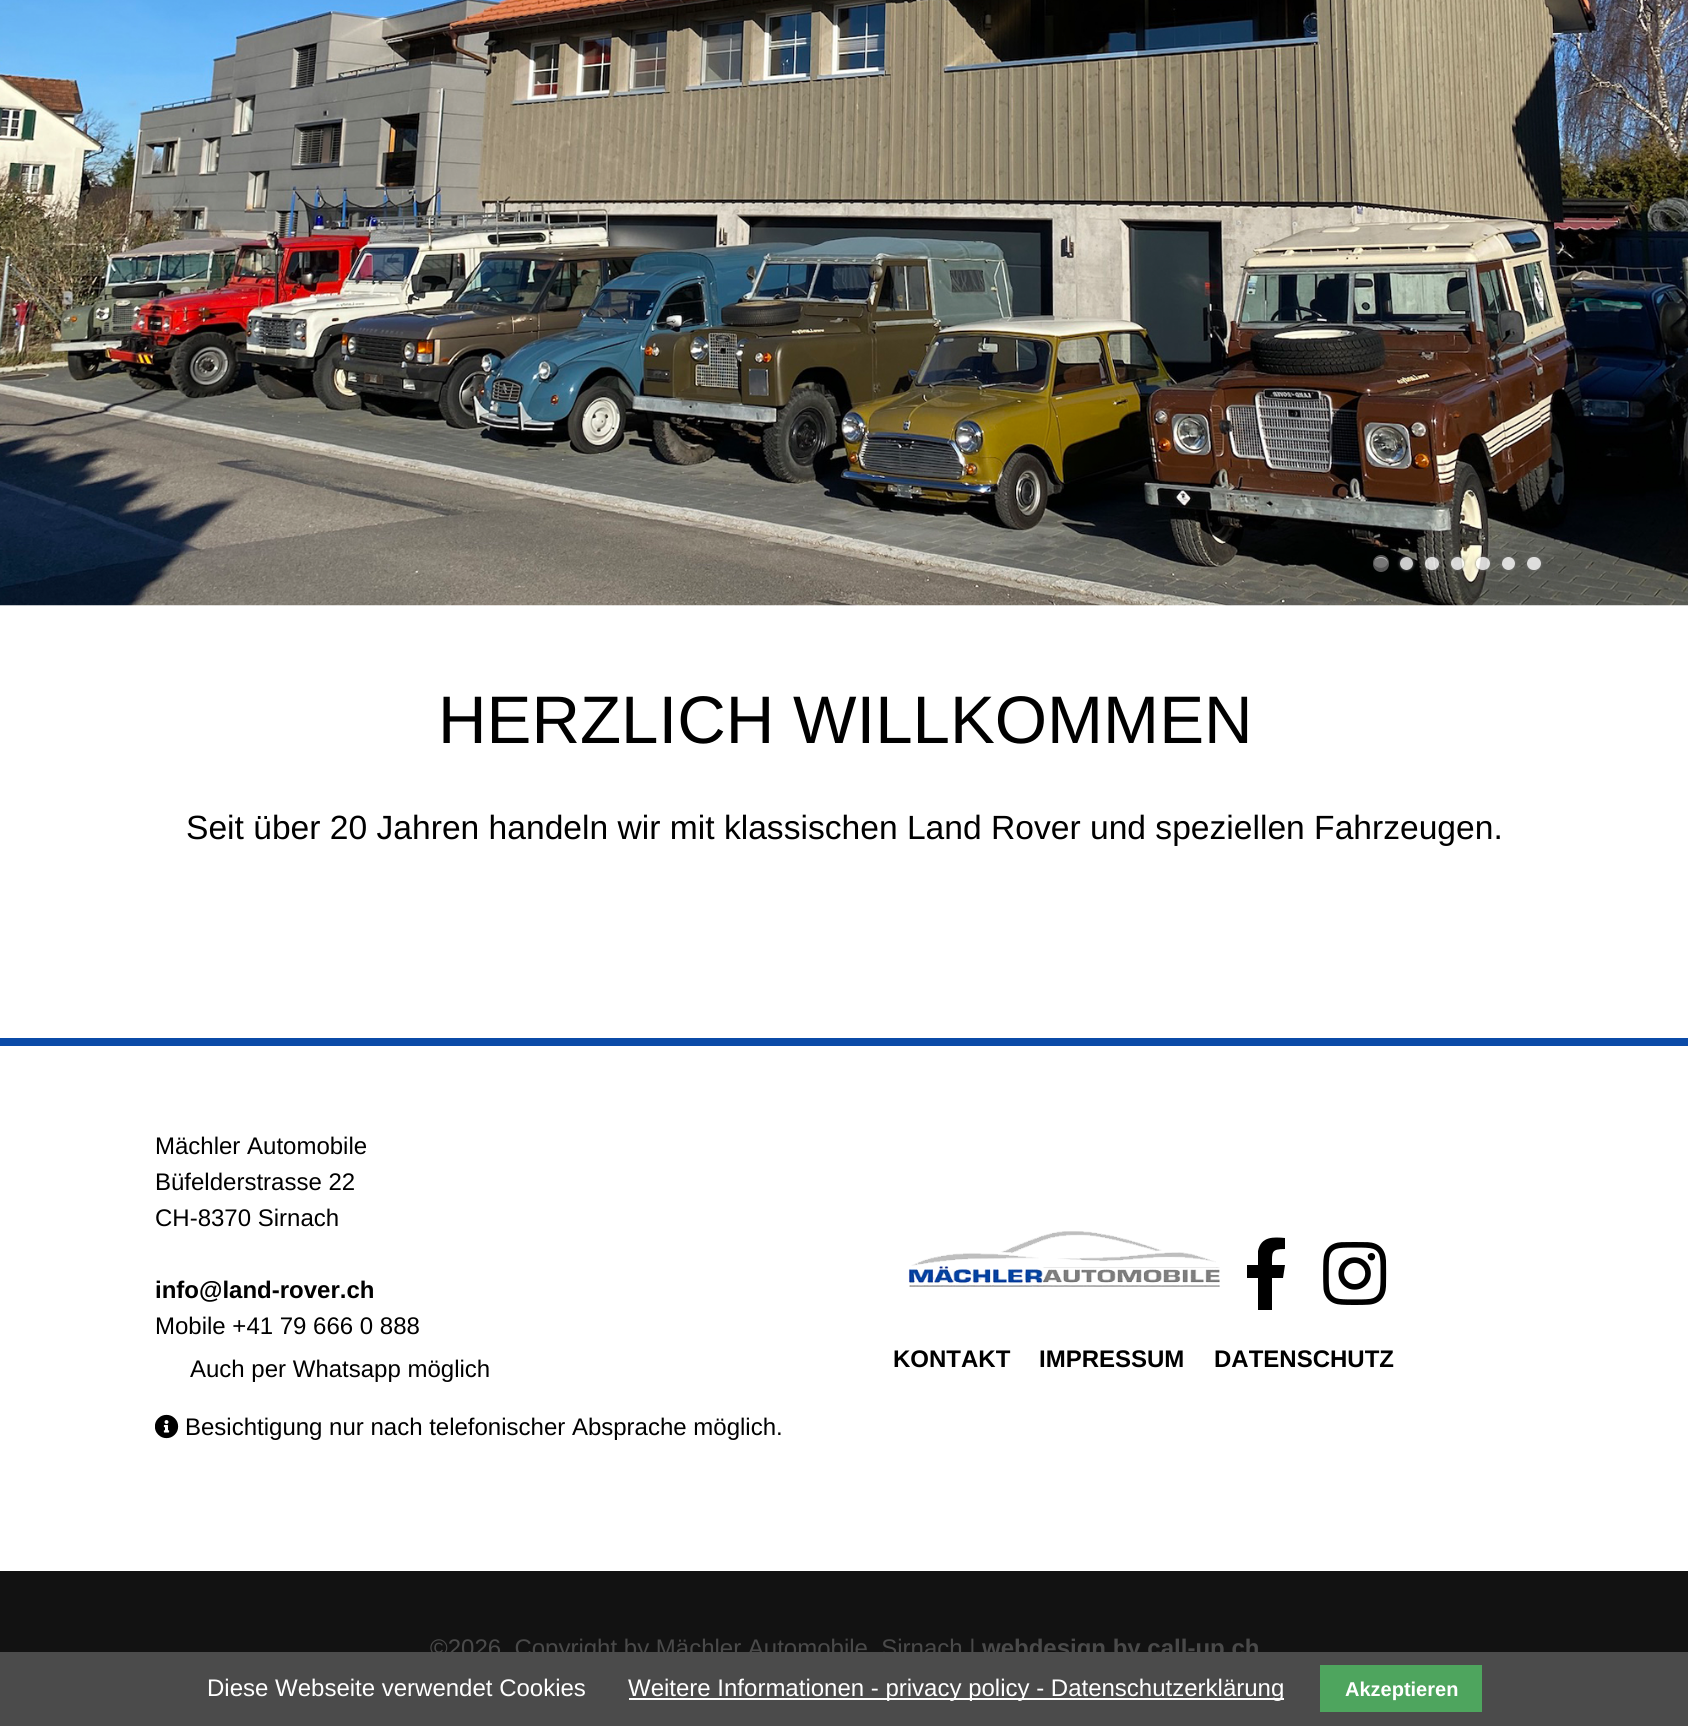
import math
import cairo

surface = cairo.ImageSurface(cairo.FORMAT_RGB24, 1688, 1726)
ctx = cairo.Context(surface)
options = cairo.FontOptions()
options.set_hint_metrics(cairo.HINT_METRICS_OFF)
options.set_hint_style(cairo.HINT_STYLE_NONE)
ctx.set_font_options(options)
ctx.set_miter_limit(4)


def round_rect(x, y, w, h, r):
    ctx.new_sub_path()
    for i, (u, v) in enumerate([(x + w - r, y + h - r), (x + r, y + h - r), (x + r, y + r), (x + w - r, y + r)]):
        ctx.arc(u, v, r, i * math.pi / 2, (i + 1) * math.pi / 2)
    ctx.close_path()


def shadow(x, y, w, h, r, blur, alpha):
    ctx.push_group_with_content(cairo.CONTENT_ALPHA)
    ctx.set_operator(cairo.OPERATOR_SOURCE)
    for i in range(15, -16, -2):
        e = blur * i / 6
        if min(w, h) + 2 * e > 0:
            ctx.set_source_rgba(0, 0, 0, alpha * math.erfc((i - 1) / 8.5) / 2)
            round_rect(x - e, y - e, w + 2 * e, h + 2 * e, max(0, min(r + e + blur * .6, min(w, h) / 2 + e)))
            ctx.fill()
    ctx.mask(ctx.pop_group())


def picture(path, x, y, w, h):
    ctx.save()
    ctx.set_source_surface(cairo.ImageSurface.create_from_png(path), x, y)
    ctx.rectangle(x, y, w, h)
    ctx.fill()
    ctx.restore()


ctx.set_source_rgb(1, 1, 1)
ctx.paint()
picture("img1.png", 0, 0, 1688, 606)
round_rect(1374, 556, 14, 15, 7)
ctx.set_source_rgb(0.333, 0.333, 0.333)
ctx.stroke()
ctx.set_source_rgb(0.467, 0.467, 0.467)
round_rect(1374, 557, 14, 13, 6.5)
ctx.fill()
ctx.set_source_rgba(0, 0, 0, 0.3)
ctx.new_path()
ctx.move_to(1374, 564.5)
ctx.curve_to(1375.5, 572.5, 1388.5, 571.5, 1388, 563)
ctx.curve_to(1386, 569, 1377.5, 569.5, 1374, 564.5)
ctx.close_path()
ctx.fill()
ctx.set_source_rgba(1, 1, 1, 0.5)
ctx.new_path()
ctx.move_to(1381, 558)
ctx.curve_to(1384.5, 558, 1387, 560, 1388, 563)
ctx.curve_to(1387.5, 556, 1377.5, 555, 1374.5, 560.5)
ctx.curve_to(1376, 559, 1378, 558, 1381, 558)
ctx.close_path()
ctx.fill()
ctx.save()
ctx.set_fill_rule(cairo.FILL_RULE_EVEN_ODD)
ctx.new_path()
ctx.move_to(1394, 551)
ctx.line_to(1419, 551)
ctx.line_to(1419, 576)
ctx.line_to(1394, 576)
ctx.close_path()
ctx.move_to(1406.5, 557)
ctx.curve_to(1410, 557, 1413, 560, 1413, 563.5)
ctx.curve_to(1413, 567, 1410, 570, 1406.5, 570)
ctx.curve_to(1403, 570, 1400, 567, 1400, 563.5)
ctx.curve_to(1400, 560, 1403, 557, 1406.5, 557)
ctx.close_path()
ctx.clip()
ctx.set_source_rgb(0.467, 0.467, 0.467)
shadow(1400, 557, 13, 13, 6.5, 1.5, 1)
ctx.restore()
ctx.set_source_rgba(1, 1, 1, 0.8)
ctx.arc(1406.5, 563.5, 6.5, 0, 2 * math.pi)
ctx.fill()
ctx.save()
ctx.set_fill_rule(cairo.FILL_RULE_EVEN_ODD)
ctx.new_path()
ctx.move_to(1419, 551)
ctx.line_to(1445, 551)
ctx.line_to(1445, 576)
ctx.line_to(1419, 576)
ctx.close_path()
ctx.move_to(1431.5, 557)
ctx.line_to(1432.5, 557)
ctx.curve_to(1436, 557, 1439, 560, 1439, 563.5)
ctx.curve_to(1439, 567, 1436, 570, 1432.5, 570)
ctx.line_to(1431.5, 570)
ctx.curve_to(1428, 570, 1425, 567, 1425, 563.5)
ctx.curve_to(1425, 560, 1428, 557, 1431.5, 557)
ctx.close_path()
ctx.clip()
ctx.set_source_rgb(0.467, 0.467, 0.467)
shadow(1425, 557, 14, 13, 6.5, 1.5, 1)
ctx.restore()
round_rect(1425, 557, 14, 13, 6.5)
ctx.fill()
ctx.save()
ctx.set_fill_rule(cairo.FILL_RULE_EVEN_ODD)
ctx.new_path()
ctx.move_to(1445, 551)
ctx.line_to(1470, 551)
ctx.line_to(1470, 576)
ctx.line_to(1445, 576)
ctx.close_path()
ctx.move_to(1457.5, 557)
ctx.curve_to(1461, 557, 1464, 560, 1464, 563.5)
ctx.curve_to(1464, 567, 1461, 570, 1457.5, 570)
ctx.curve_to(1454, 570, 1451, 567, 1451, 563.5)
ctx.curve_to(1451, 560, 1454, 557, 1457.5, 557)
ctx.close_path()
ctx.clip()
ctx.set_source_rgb(0.467, 0.467, 0.467)
shadow(1451, 557, 13, 13, 6.5, 1.5, 1)
ctx.restore()
ctx.arc(1457.5, 563.5, 6.5, 0, 2 * math.pi)
ctx.fill()
ctx.save()
ctx.set_fill_rule(cairo.FILL_RULE_EVEN_ODD)
ctx.new_path()
ctx.move_to(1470, 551)
ctx.line_to(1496, 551)
ctx.line_to(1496, 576)
ctx.line_to(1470, 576)
ctx.close_path()
ctx.move_to(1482.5, 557)
ctx.line_to(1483.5, 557)
ctx.curve_to(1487, 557, 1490, 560, 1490, 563.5)
ctx.curve_to(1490, 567, 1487, 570, 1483.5, 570)
ctx.line_to(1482.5, 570)
ctx.curve_to(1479, 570, 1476, 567, 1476, 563.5)
ctx.curve_to(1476, 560, 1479, 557, 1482.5, 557)
ctx.close_path()
ctx.clip()
ctx.set_source_rgb(0.467, 0.467, 0.467)
shadow(1476, 557, 14, 13, 6.5, 1.5, 1)
ctx.restore()
round_rect(1476, 557, 14, 13, 6.5)
ctx.fill()
ctx.save()
ctx.set_fill_rule(cairo.FILL_RULE_EVEN_ODD)
ctx.new_path()
ctx.move_to(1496, 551)
ctx.line_to(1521, 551)
ctx.line_to(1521, 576)
ctx.line_to(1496, 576)
ctx.close_path()
ctx.move_to(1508.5, 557)
ctx.curve_to(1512, 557, 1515, 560, 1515, 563.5)
ctx.curve_to(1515, 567, 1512, 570, 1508.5, 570)
ctx.curve_to(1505, 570, 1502, 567, 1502, 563.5)
ctx.curve_to(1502, 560, 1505, 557, 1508.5, 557)
ctx.close_path()
ctx.clip()
ctx.set_source_rgb(0.467, 0.467, 0.467)
shadow(1502, 557, 13, 13, 6.5, 1.5, 1)
ctx.restore()
ctx.arc(1508.5, 563.5, 6.5, 0, 2 * math.pi)
ctx.fill()
ctx.save()
ctx.set_fill_rule(cairo.FILL_RULE_EVEN_ODD)
ctx.new_path()
ctx.move_to(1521, 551)
ctx.line_to(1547, 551)
ctx.line_to(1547, 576)
ctx.line_to(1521, 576)
ctx.close_path()
ctx.move_to(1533.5, 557)
ctx.line_to(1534.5, 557)
ctx.curve_to(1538, 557, 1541, 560, 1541, 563.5)
ctx.curve_to(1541, 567, 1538, 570, 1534.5, 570)
ctx.line_to(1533.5, 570)
ctx.curve_to(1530, 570, 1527, 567, 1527, 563.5)
ctx.curve_to(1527, 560, 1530, 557, 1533.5, 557)
ctx.close_path()
ctx.clip()
ctx.set_source_rgb(0.467, 0.467, 0.467)
shadow(1527, 557, 14, 13, 6.5, 1.5, 1)
ctx.restore()
round_rect(1527, 557, 14, 13, 6.5)
ctx.fill()
ctx.select_font_face("Liberation Sans")
ctx.set_font_size(67.25)
ctx.set_source_rgb(0, 0, 0)
ctx.move_to(438, 743)
ctx.show_text("HERZLICH WILLKOMMEN")
ctx.set_font_size(33.6)
ctx.move_to(186, 839)
ctx.show_text("Seit über 20 Jahren handeln wir mit klassischen Land Rover und speziellen Fahrzeugen.")
ctx.set_source_rgb(0.043, 0.294, 0.659)
ctx.rectangle(0, 1038, 1688, 8)
ctx.fill()
ctx.set_font_size(24)
ctx.set_source_rgb(0, 0, 0)
ctx.move_to(155, 1154)
ctx.show_text("Mächler Automobile")
ctx.move_to(155, 1190)
ctx.show_text("Büfelderstrasse 22")
ctx.move_to(155, 1226)
ctx.show_text("CH-8370 Sirnach")
ctx.select_font_face("Liberation Sans", cairo.FONT_SLANT_NORMAL, cairo.FONT_WEIGHT_BOLD)
ctx.move_to(155, 1298)
ctx.show_text("info@land-rover.ch")
ctx.select_font_face("Liberation Sans")
ctx.move_to(155, 1334)
ctx.show_text("Mobile +41 79 666 0 888")
ctx.move_to(190, 1377)
ctx.show_text("Auch per Whatsapp möglich")
picture("img2.png", 155, 1414, 24, 25)
ctx.move_to(185, 1435)
ctx.show_text("Besichtigung nur nach telefonischer Absprache möglich.")
picture("img3.png", 908, 1231, 312, 56)
ctx.new_path()
ctx.move_to(1283, 1278)
ctx.line_to(1272, 1278)
ctx.line_to(1272, 1310)
ctx.line_to(1258, 1310)
ctx.line_to(1258, 1278)
ctx.line_to(1247, 1278)
ctx.line_to(1247, 1265)
ctx.line_to(1258, 1265)
ctx.line_to(1258, 1251)
ctx.curve_to(1261, 1236, 1274, 1237, 1285, 1238)
ctx.line_to(1285, 1249)
ctx.curve_to(1271, 1249, 1272, 1252, 1272, 1265)
ctx.line_to(1285, 1265)
ctx.close_path()
ctx.fill()
picture("img4.png", 1323, 1242, 64, 63)
ctx.select_font_face("Liberation Sans", cairo.FONT_SLANT_NORMAL, cairo.FONT_WEIGHT_BOLD)
ctx.move_to(893, 1367)
ctx.show_text("KONTAKT")
ctx.move_to(1039, 1367)
ctx.show_text("IMPRESSUM")
ctx.move_to(1214, 1367)
ctx.show_text("DATENSCHUTZ")
ctx.set_source_rgb(0.071, 0.071, 0.071)
ctx.rectangle(0, 1571, 1688, 81)
ctx.fill()
ctx.select_font_face("Liberation Sans")
ctx.set_source_rgb(0.29, 0.29, 0.29)
ctx.move_to(430, 1656)
ctx.show_text("©2026, Copyright by Mächler Automobile, Sirnach |")
ctx.select_font_face("Liberation Sans", cairo.FONT_SLANT_NORMAL, cairo.FONT_WEIGHT_BOLD)
ctx.move_to(982, 1656)
ctx.show_text("webdesign by call-up.ch")
ctx.set_source_rgb(0.294, 0.294, 0.294)
ctx.rectangle(0, 1652, 1688, 74)
ctx.fill()
ctx.select_font_face("Liberation Sans")
ctx.set_source_rgb(1, 1, 1)
ctx.move_to(207, 1696)
ctx.show_text("Diese Webseite verwendet Cookies")
ctx.rectangle(629, 1698, 655, 2)
ctx.fill()
ctx.move_to(628, 1696)
ctx.show_text("Weitere Informationen - privacy policy - Datenschutzerklärung")
ctx.set_source_rgb(0.306, 0.647, 0.369)
ctx.rectangle(1320, 1665, 162, 47)
ctx.fill()
ctx.select_font_face("Liberation Sans", cairo.FONT_SLANT_NORMAL, cairo.FONT_WEIGHT_BOLD)
ctx.set_font_size(20)
ctx.set_source_rgb(1, 1, 1)
ctx.move_to(1345, 1696)
ctx.show_text("Akzeptieren")
surface.write_to_png("page.png")
